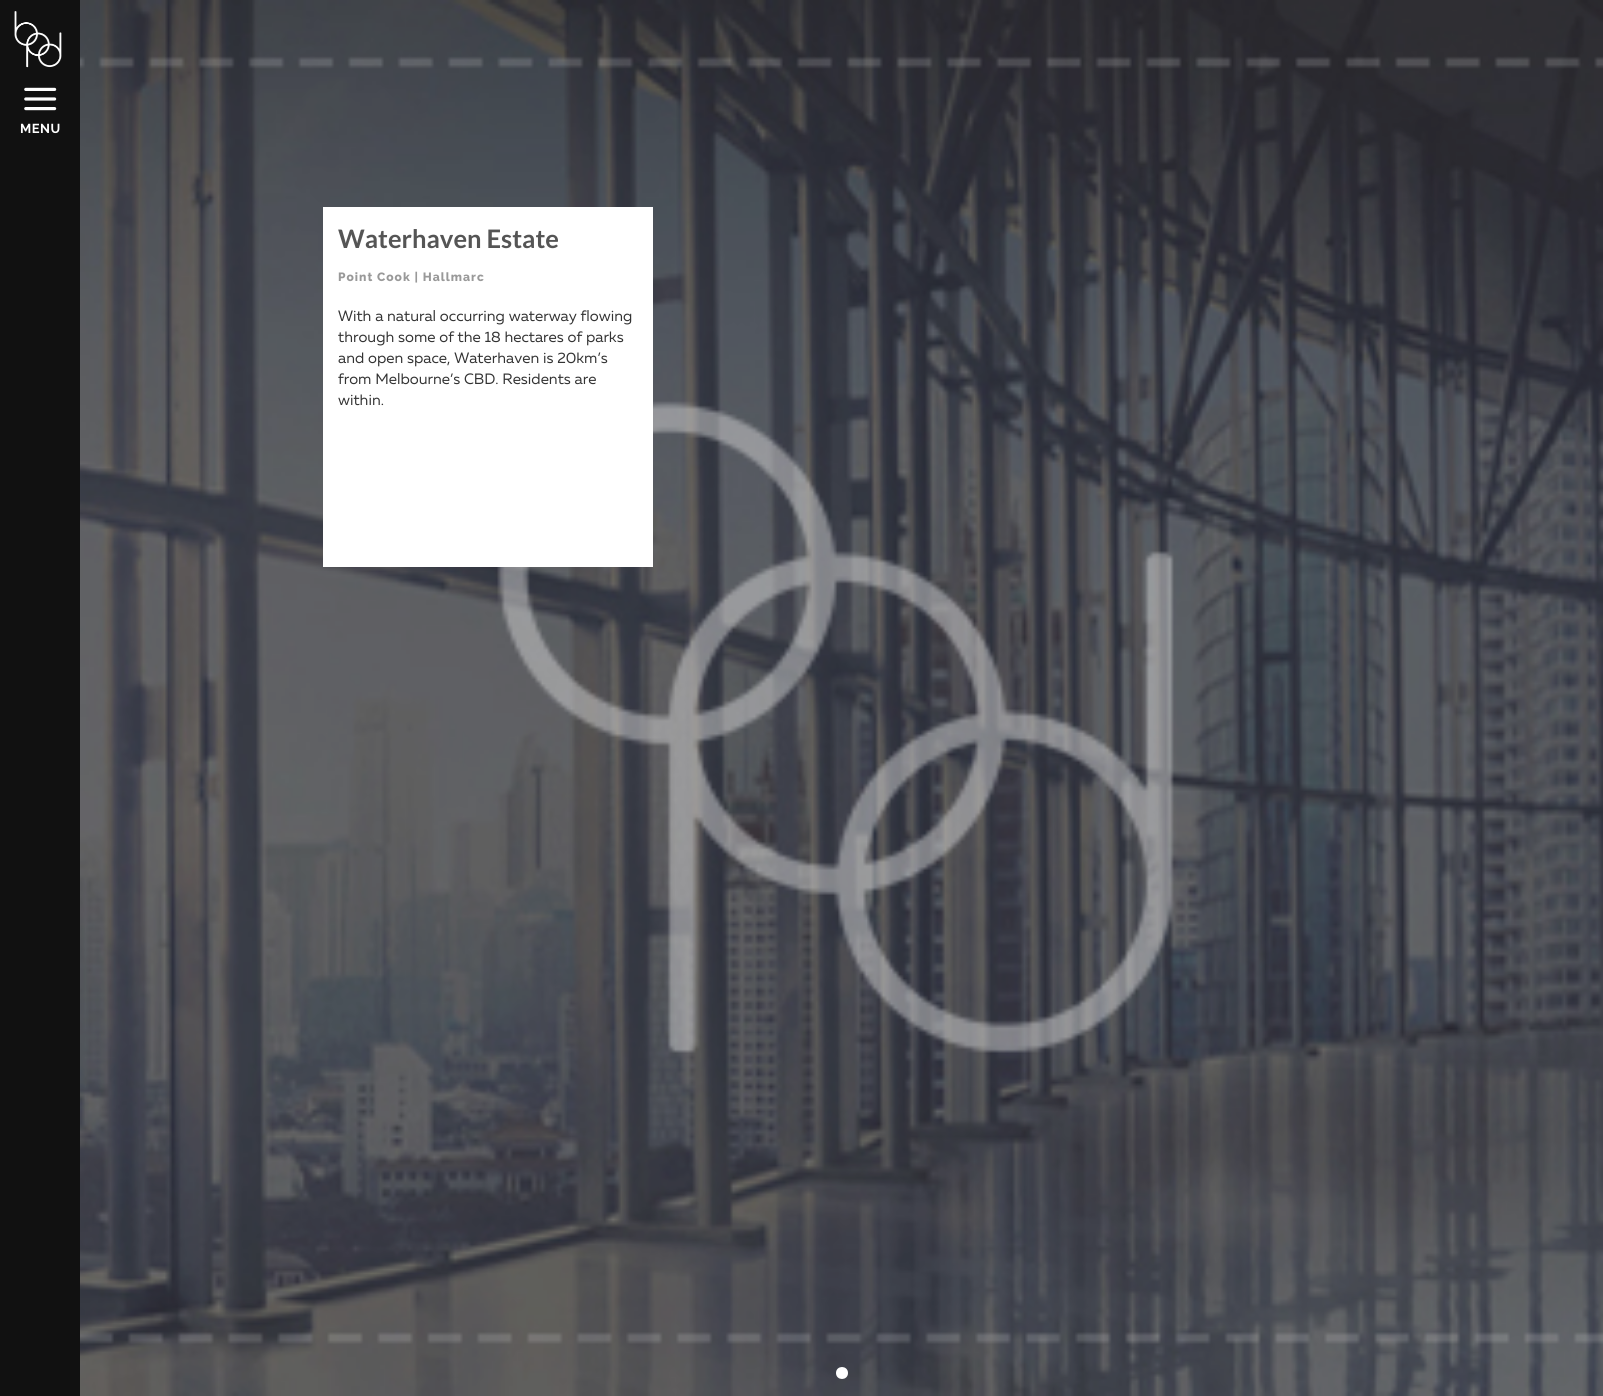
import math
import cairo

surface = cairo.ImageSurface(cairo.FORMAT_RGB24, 1603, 1396)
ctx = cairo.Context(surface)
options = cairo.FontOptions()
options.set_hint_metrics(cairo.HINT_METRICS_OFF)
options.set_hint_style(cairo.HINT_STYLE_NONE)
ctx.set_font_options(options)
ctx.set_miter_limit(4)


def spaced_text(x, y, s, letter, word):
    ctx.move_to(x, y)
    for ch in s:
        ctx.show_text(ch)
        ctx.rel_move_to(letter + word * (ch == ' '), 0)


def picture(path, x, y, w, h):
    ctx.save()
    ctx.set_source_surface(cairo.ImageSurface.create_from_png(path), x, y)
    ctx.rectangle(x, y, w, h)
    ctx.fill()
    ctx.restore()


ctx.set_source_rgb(0.067, 0.067, 0.067)
ctx.paint()
picture("img1.png", 14, 11, 48, 57)
picture("img2.png", 24, 87, 33, 24)
ctx.select_font_face("Raleway", cairo.FONT_SLANT_NORMAL, cairo.FONT_WEIGHT_BOLD)
ctx.set_font_size(13)
ctx.set_source_rgb(1, 1, 1)
spaced_text(20, 133, "MENU", 0.5, 0)
picture("img3.png", 80, 0, 1523, 1396)
ctx.arc(842, 1373, 4.5, 0, 2 * math.pi)
ctx.fill_preserve()
ctx.set_line_width(3)
ctx.stroke()
ctx.rectangle(323, 207, 330, 360)
ctx.fill()
ctx.select_font_face("Lato", cairo.FONT_SLANT_NORMAL, cairo.FONT_WEIGHT_BOLD)
ctx.set_font_size(25.5)
ctx.set_source_rgb(0.333, 0.333, 0.333)
ctx.move_to(338, 248)
ctx.show_text("Waterhaven Estate")
ctx.select_font_face("Raleway ExtraBold")
ctx.set_font_size(12)
ctx.set_source_rgb(0.6, 0.6, 0.6)
spaced_text(338, 281, "Point Cook | Hallmarc", 1, 0)
ctx.select_font_face("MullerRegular")
ctx.set_font_size(15)
ctx.set_source_rgb(0.2, 0.2, 0.2)
ctx.move_to(338, 321)
ctx.show_text("With a natural occurring waterway flowing")
ctx.move_to(338, 342)
ctx.show_text("through some of the 18 hectares of parks")
ctx.move_to(338, 363)
ctx.show_text("and open space, Waterhaven is 20km’s")
ctx.move_to(338, 384)
ctx.show_text("from Melbourne’s CBD. Residents are")
ctx.move_to(338, 405)
ctx.show_text("within.")
surface.write_to_png("page.png")
